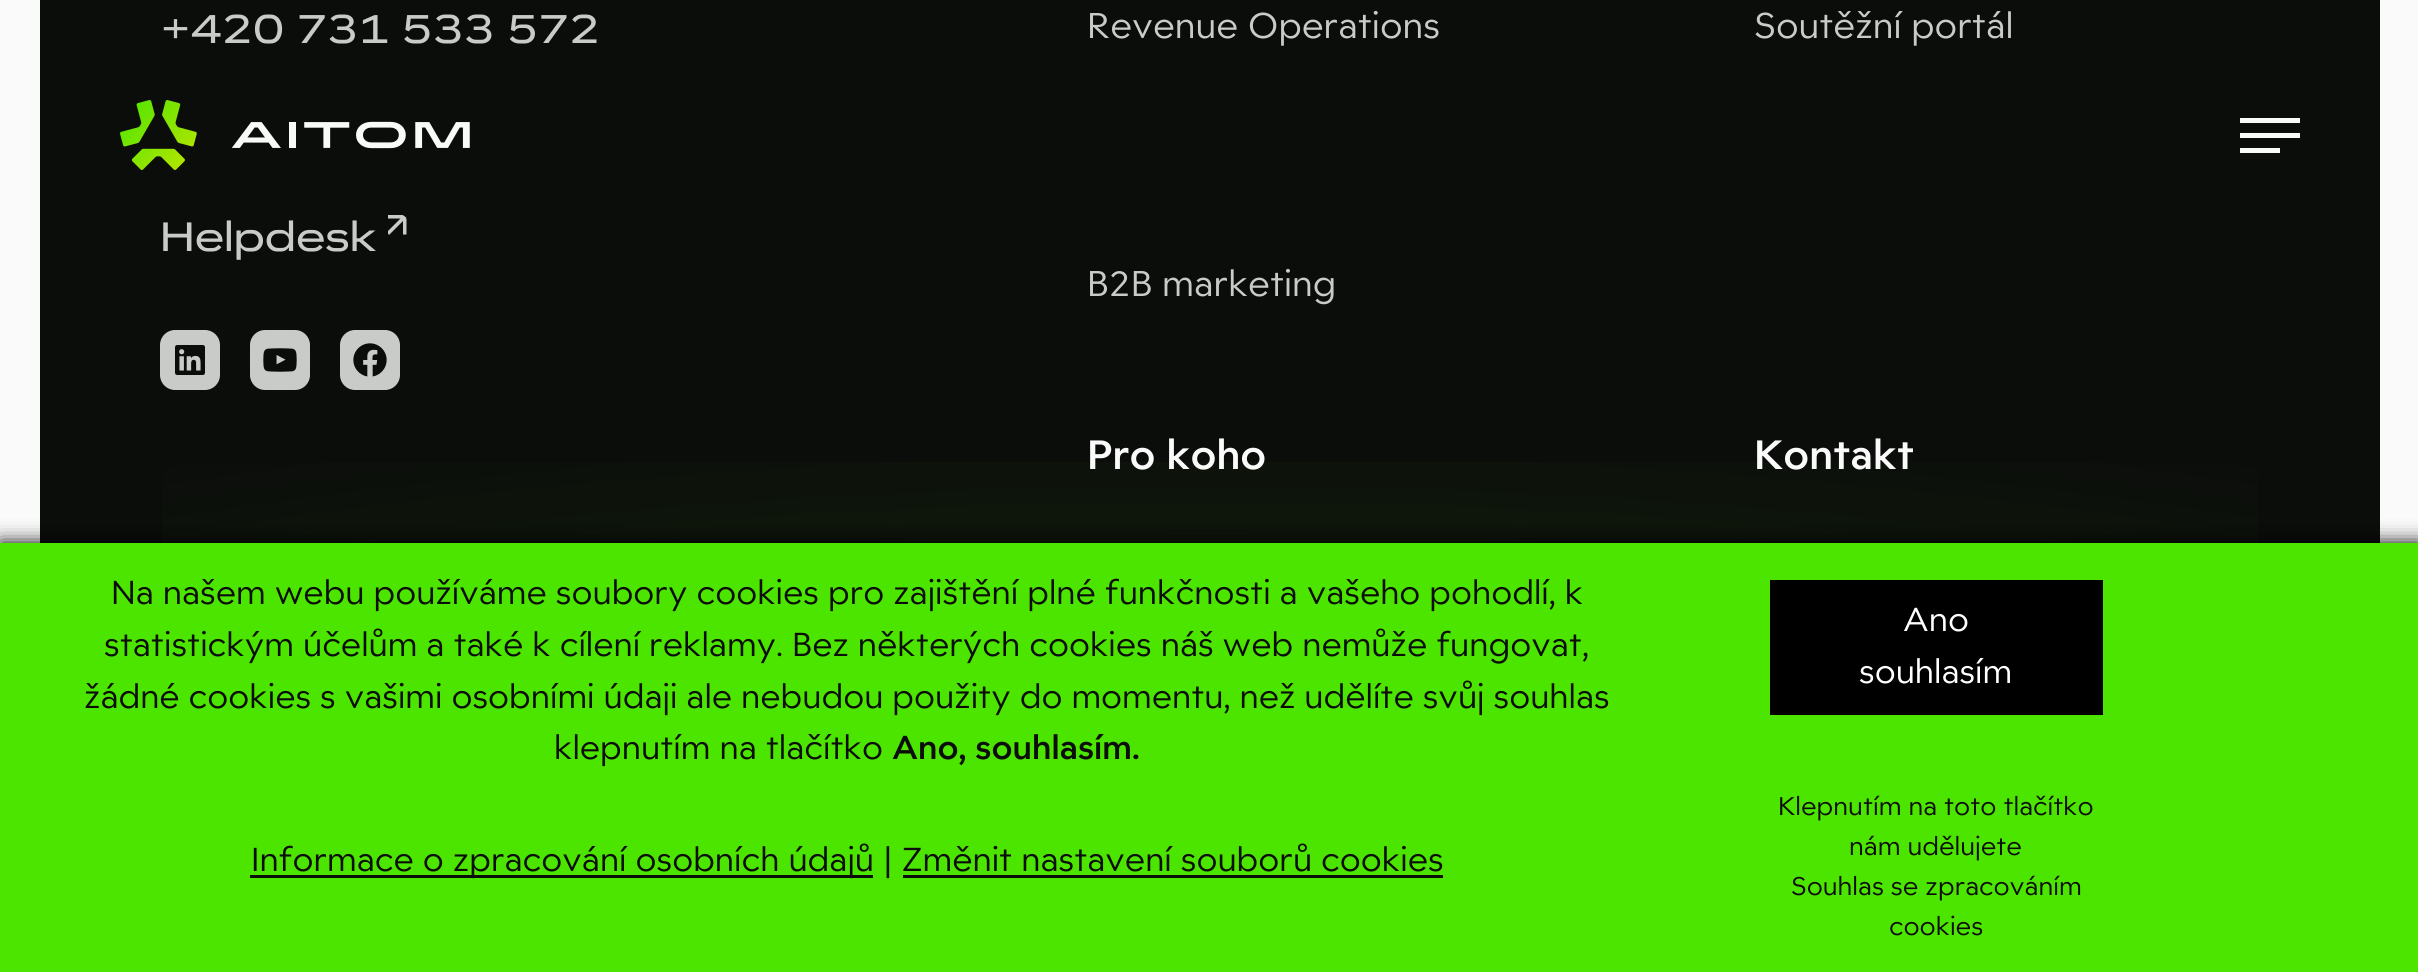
import math
import cairo

surface = cairo.ImageSurface(cairo.FORMAT_RGB24, 2418, 972)
ctx = cairo.Context(surface)
options = cairo.FontOptions()
options.set_hint_metrics(cairo.HINT_METRICS_OFF)
options.set_hint_style(cairo.HINT_STYLE_NONE)
ctx.set_font_options(options)
ctx.set_miter_limit(4)


def round_rect(x, y, w, h, r):
    ctx.new_sub_path()
    for i, (u, v) in enumerate([(x + w - r, y + h - r), (x + r, y + h - r), (x + r, y + r), (x + w - r, y + r)]):
        ctx.arc(u, v, r, i * math.pi / 2, (i + 1) * math.pi / 2)
    ctx.close_path()


def shadow(x, y, w, h, r, blur, alpha):
    ctx.push_group_with_content(cairo.CONTENT_ALPHA)
    ctx.set_operator(cairo.OPERATOR_SOURCE)
    for i in range(15, -16, -2):
        e = blur * i / 6
        if min(w, h) + 2 * e > 0:
            ctx.set_source_rgba(0, 0, 0, alpha * math.erfc((i - 1) / 8.5) / 2)
            round_rect(x - e, y - e, w + 2 * e, h + 2 * e, max(0, min(r + e + blur * .6, min(w, h) / 2 + e)))
            ctx.fill()
    ctx.mask(ctx.pop_group())


def picture(path, x, y, w, h):
    ctx.save()
    ctx.set_source_surface(cairo.ImageSurface.create_from_png(path), x, y)
    ctx.rectangle(x, y, w, h)
    ctx.fill()
    ctx.restore()


ctx.set_source_rgb(0.973, 0.98, 0.973)
ctx.paint()
ctx.set_source_rgb(0.043, 0.051, 0.043)
ctx.rectangle(40, 0, 2340, 543)
ctx.fill()
gradient = cairo.RadialGradient(0, 0, 0, 0, 0, 1)
gradient.set_matrix(cairo.Matrix(1 / 2798, 0, 0, 1 / 1059, -1 * 1210 / 2798, -1 * 1445 / 1059))
gradient.add_color_stop_rgba(0, 0.298, 0.898, 0, 0.3)
gradient.add_color_stop_rgba(1, 0.298, 0.898, 0, 0)
ctx.set_source(gradient)
ctx.rectangle(162, 462, 2096, 81)
ctx.fill()
ctx.select_font_face("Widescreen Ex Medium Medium")
ctx.set_font_size(40)
ctx.set_source_rgb(0.788, 0.796, 0.788)
ctx.move_to(160, 43)
ctx.show_text("+420 731 533 572")
ctx.move_to(160, 251)
ctx.show_text("Helpdesk")
ctx.new_path()
ctx.move_to(388, 215)
ctx.line_to(388, 218.5)
ctx.line_to(400.5, 218.5)
ctx.line_to(388, 231)
ctx.line_to(388, 233.5)
ctx.line_to(389, 235)
ctx.line_to(403, 221)
ctx.line_to(403, 234.5)
ctx.line_to(406.5, 234.5)
ctx.line_to(406.5, 219)
ctx.line_to(406, 218.5)
ctx.line_to(406.5, 218)
ctx.curve_to(405.5, 217, 404, 215.5, 402.5, 215)
ctx.close_path()
ctx.fill()
round_rect(160, 330, 60, 60, 15)
ctx.fill()
picture("img1.png", 175, 345, 30, 30)
round_rect(250, 330, 60, 60, 15)
ctx.fill()
picture("img2.png", 263, 348, 34, 24)
round_rect(340, 330, 60, 60, 15)
ctx.fill()
picture("img3.png", 353, 343, 34, 34)
ctx.select_font_face("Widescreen")
ctx.set_font_size(35)
ctx.move_to(1087, 38)
ctx.show_text("Revenue Operations")
ctx.move_to(1087, 296)
ctx.show_text("B2B marketing")
ctx.move_to(1754, 38)
ctx.show_text("Soutěžní portál")
ctx.select_font_face("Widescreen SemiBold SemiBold")
ctx.set_font_size(40)
ctx.set_source_rgb(0.973, 0.98, 0.973)
ctx.move_to(1087, 469)
ctx.show_text("Pro koho")
ctx.move_to(1754, 469)
ctx.show_text("Kontakt")
picture("img4.png", 120, 100, 350, 70)
ctx.rectangle(2240, 118, 60, 5)
ctx.fill()
ctx.rectangle(2240, 133, 60, 5)
ctx.fill()
ctx.rectangle(2240, 148, 40, 5)
ctx.fill()
ctx.set_source_rgb(0, 0, 0)
shadow(0, 543, 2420, 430, 0, 10, 1)
ctx.set_source_rgb(0.298, 0.898, 0)
ctx.rectangle(0, 543, 2418, 429)
ctx.fill()
ctx.select_font_face("Widescreen")
ctx.set_font_size(32.5)
ctx.set_source_rgb(0.043, 0.051, 0.043)
ctx.move_to(111, 604)
ctx.show_text("Na našem webu používáme soubory cookies pro zajištění plné funkčnosti a vašeho pohodlí, k")
ctx.move_to(104, 656)
ctx.show_text("statistickým účelům a také k cílení reklamy. Bez některých cookies náš web nemůže fungovat,")
ctx.move_to(84, 708)
ctx.show_text("žádné cookies s vašimi osobními údaji ale nebudou použity do momentu, než udělíte svůj souhlas")
ctx.move_to(554, 759)
ctx.show_text("klepnutím na tlačítko")
ctx.select_font_face("Widescreen SemiBold SemiBold")
ctx.move_to(892, 759)
ctx.show_text("Ano, souhlasím.")
ctx.rectangle(250, 875, 623, 3)
ctx.fill()
ctx.select_font_face("Widescreen")
ctx.move_to(251, 871)
ctx.show_text("Informace o zpracování osobních údajů | Změnit nastavení souborů cookies")
ctx.rectangle(903, 875, 540, 3)
ctx.fill()
ctx.set_source_rgb(0, 0, 0)
ctx.rectangle(1770, 580, 333, 135)
ctx.fill()
ctx.set_source_rgb(1, 1, 1)
ctx.move_to(1903, 631)
ctx.show_text("Ano")
ctx.move_to(1859, 683)
ctx.show_text("souhlasím")
ctx.set_font_size(25)
ctx.set_source_rgb(0.043, 0.051, 0.043)
ctx.move_to(1778, 815)
ctx.show_text("Klepnutím na toto tlačítko")
ctx.move_to(1849, 855)
ctx.show_text("nám udělujete")
ctx.move_to(1791, 895)
ctx.show_text("Souhlas se zpracováním")
ctx.move_to(1889, 935)
ctx.show_text("cookies")
surface.write_to_png("page.png")
